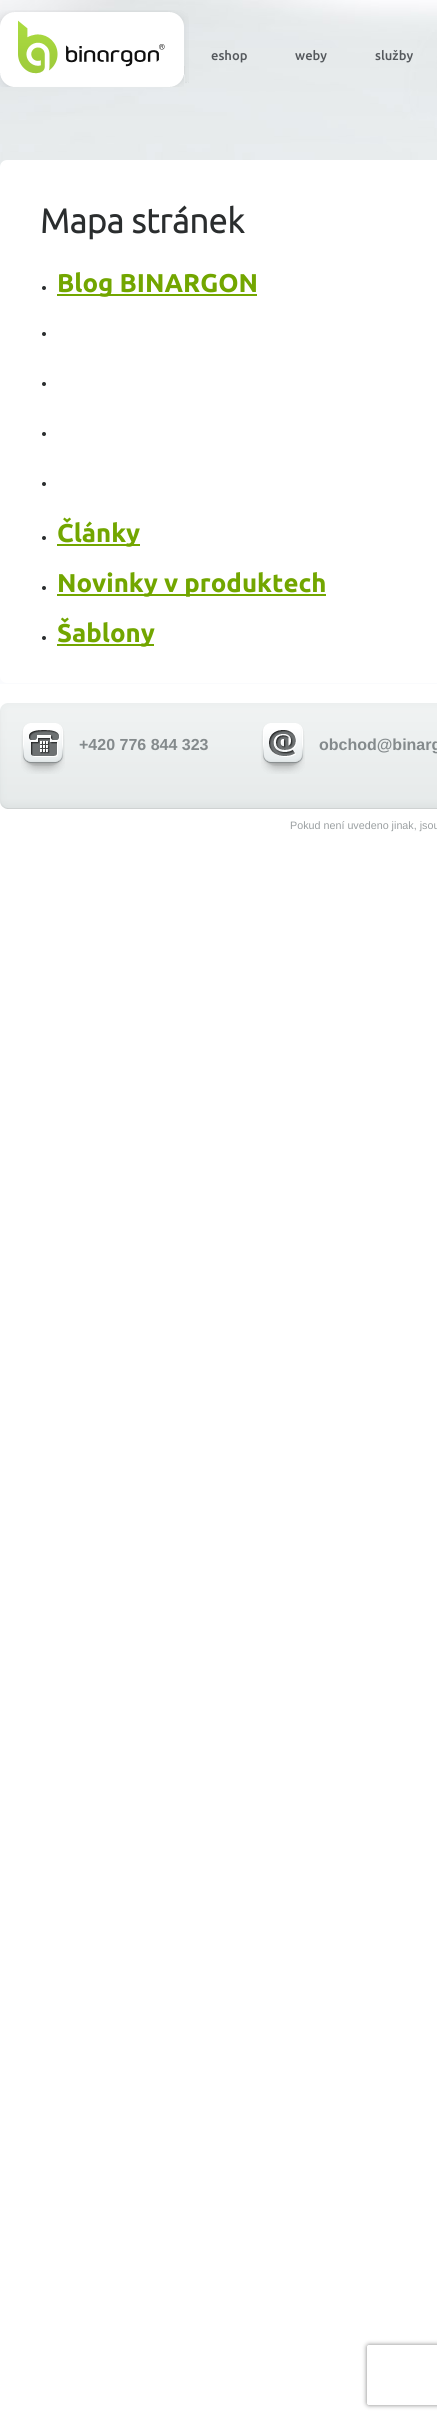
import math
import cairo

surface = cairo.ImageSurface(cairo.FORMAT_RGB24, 437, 2419)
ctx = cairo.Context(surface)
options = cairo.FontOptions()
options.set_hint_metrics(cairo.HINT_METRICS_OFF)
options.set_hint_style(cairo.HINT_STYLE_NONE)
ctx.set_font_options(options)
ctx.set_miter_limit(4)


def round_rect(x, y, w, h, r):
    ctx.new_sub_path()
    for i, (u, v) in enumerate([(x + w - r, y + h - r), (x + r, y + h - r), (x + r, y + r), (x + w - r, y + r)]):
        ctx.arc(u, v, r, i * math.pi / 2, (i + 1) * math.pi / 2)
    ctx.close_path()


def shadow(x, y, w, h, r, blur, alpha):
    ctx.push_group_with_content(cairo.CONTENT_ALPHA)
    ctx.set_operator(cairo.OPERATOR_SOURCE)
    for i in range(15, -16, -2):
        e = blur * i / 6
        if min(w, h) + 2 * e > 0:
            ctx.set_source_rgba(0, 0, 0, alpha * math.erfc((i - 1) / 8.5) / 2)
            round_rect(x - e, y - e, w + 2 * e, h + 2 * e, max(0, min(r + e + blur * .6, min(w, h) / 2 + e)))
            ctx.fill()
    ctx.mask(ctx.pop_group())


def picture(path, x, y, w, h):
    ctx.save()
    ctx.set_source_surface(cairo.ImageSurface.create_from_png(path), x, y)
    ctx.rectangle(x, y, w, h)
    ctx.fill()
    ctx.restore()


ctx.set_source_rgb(1, 1, 1)
ctx.paint()
picture("img1.png", 0, 0, 437, 684)
picture("img2.png", 0, 10, 189, 77)
ctx.select_font_face("Ubuntu Medium")
ctx.set_font_size(13)
ctx.set_source_rgb(0.329, 0.345, 0.361)
ctx.move_to(211, 60)
ctx.show_text("eshop")
ctx.move_to(295, 60)
ctx.show_text("weby")
ctx.move_to(375, 60)
ctx.show_text("služby")
ctx.set_source_rgb(1, 1, 1)
round_rect(0, 160, 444, 523, 7)
ctx.fill()
ctx.select_font_face("Ubuntu", cairo.FONT_SLANT_NORMAL, cairo.FONT_WEIGHT_BOLD)
ctx.set_font_size(34)
ctx.set_source_rgb(0.165, 0.176, 0.18)
ctx.move_to(40, 233)
ctx.show_text("Mapa stránek")
ctx.new_path()
ctx.arc(44, 288, 2, 0, 2 * math.pi)
ctx.fill()
ctx.set_source_rgb(0.447, 0.651, 0)
ctx.rectangle(57, 294, 200, 2)
ctx.fill()
ctx.select_font_face("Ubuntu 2", cairo.FONT_SLANT_NORMAL, cairo.FONT_WEIGHT_BOLD)
ctx.set_font_size(25.75)
ctx.move_to(57, 292)
ctx.show_text("Blog BINARGON")
ctx.set_source_rgb(0.165, 0.176, 0.18)
ctx.new_path()
ctx.arc(44, 334, 2, 0, 2 * math.pi)
ctx.fill()
ctx.arc(44, 384, 2, 0, 2 * math.pi)
ctx.fill()
ctx.arc(44, 434, 2, 0, 2 * math.pi)
ctx.fill()
ctx.arc(44, 484, 2, 0, 2 * math.pi)
ctx.fill()
ctx.arc(44, 538, 2, 0, 2 * math.pi)
ctx.fill()
ctx.set_source_rgb(0.447, 0.651, 0)
ctx.rectangle(57, 544, 83, 2)
ctx.fill()
ctx.move_to(57, 542)
ctx.show_text("Články")
ctx.set_source_rgb(0.165, 0.176, 0.18)
ctx.new_path()
ctx.arc(44, 588, 2, 0, 2 * math.pi)
ctx.fill()
ctx.set_source_rgb(0.447, 0.651, 0)
ctx.rectangle(57, 594, 269, 2)
ctx.fill()
ctx.move_to(57, 592)
ctx.show_text("Novinky v produktech")
ctx.set_source_rgb(0.165, 0.176, 0.18)
ctx.new_path()
ctx.arc(44, 638, 2, 0, 2 * math.pi)
ctx.fill()
ctx.set_source_rgb(0.447, 0.651, 0)
ctx.rectangle(57, 644, 97, 2)
ctx.fill()
ctx.move_to(57, 642)
ctx.show_text("Šablony")
picture("img3.png", 0, 703, 9, 106)
picture("img4.png", 9, 703, 428, 106)
picture("img5.png", 21, 723, 44, 51)
ctx.select_font_face("Liberation Sans", cairo.FONT_SLANT_NORMAL, cairo.FONT_WEIGHT_BOLD)
ctx.set_font_size(16)
ctx.set_source_rgb(0.518, 0.541, 0.549)
ctx.move_to(79, 750)
ctx.show_text("+420 776 844 323")
picture("img6.png", 261, 723, 44, 51)
ctx.move_to(319, 750)
ctx.show_text("obchod@binarg")
ctx.select_font_face("Liberation Sans")
ctx.set_font_size(10.75)
ctx.set_source_rgb(0.608, 0.627, 0.635)
ctx.move_to(290, 829)
ctx.show_text("Pokud není uvedeno jinak, jsou")
ctx.save()
ctx.set_fill_rule(cairo.FILL_RULE_EVEN_ODD)
ctx.new_path()
ctx.move_to(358, 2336)
ctx.line_to(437, 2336)
ctx.line_to(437, 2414)
ctx.line_to(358, 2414)
ctx.close_path()
ctx.move_to(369, 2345)
ctx.line_to(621, 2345)
ctx.curve_to(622, 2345, 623, 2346, 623, 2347)
ctx.line_to(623, 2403)
ctx.curve_to(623, 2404, 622, 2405, 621, 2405)
ctx.line_to(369, 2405)
ctx.curve_to(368, 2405, 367, 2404, 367, 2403)
ctx.line_to(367, 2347)
ctx.curve_to(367, 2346, 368, 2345, 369, 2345)
ctx.close_path()
ctx.clip()
ctx.set_source_rgb(0.502, 0.502, 0.502)
shadow(367, 2345, 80, 60, 2, 2.5, 1)
ctx.restore()
surface.write_to_png("page.png")
